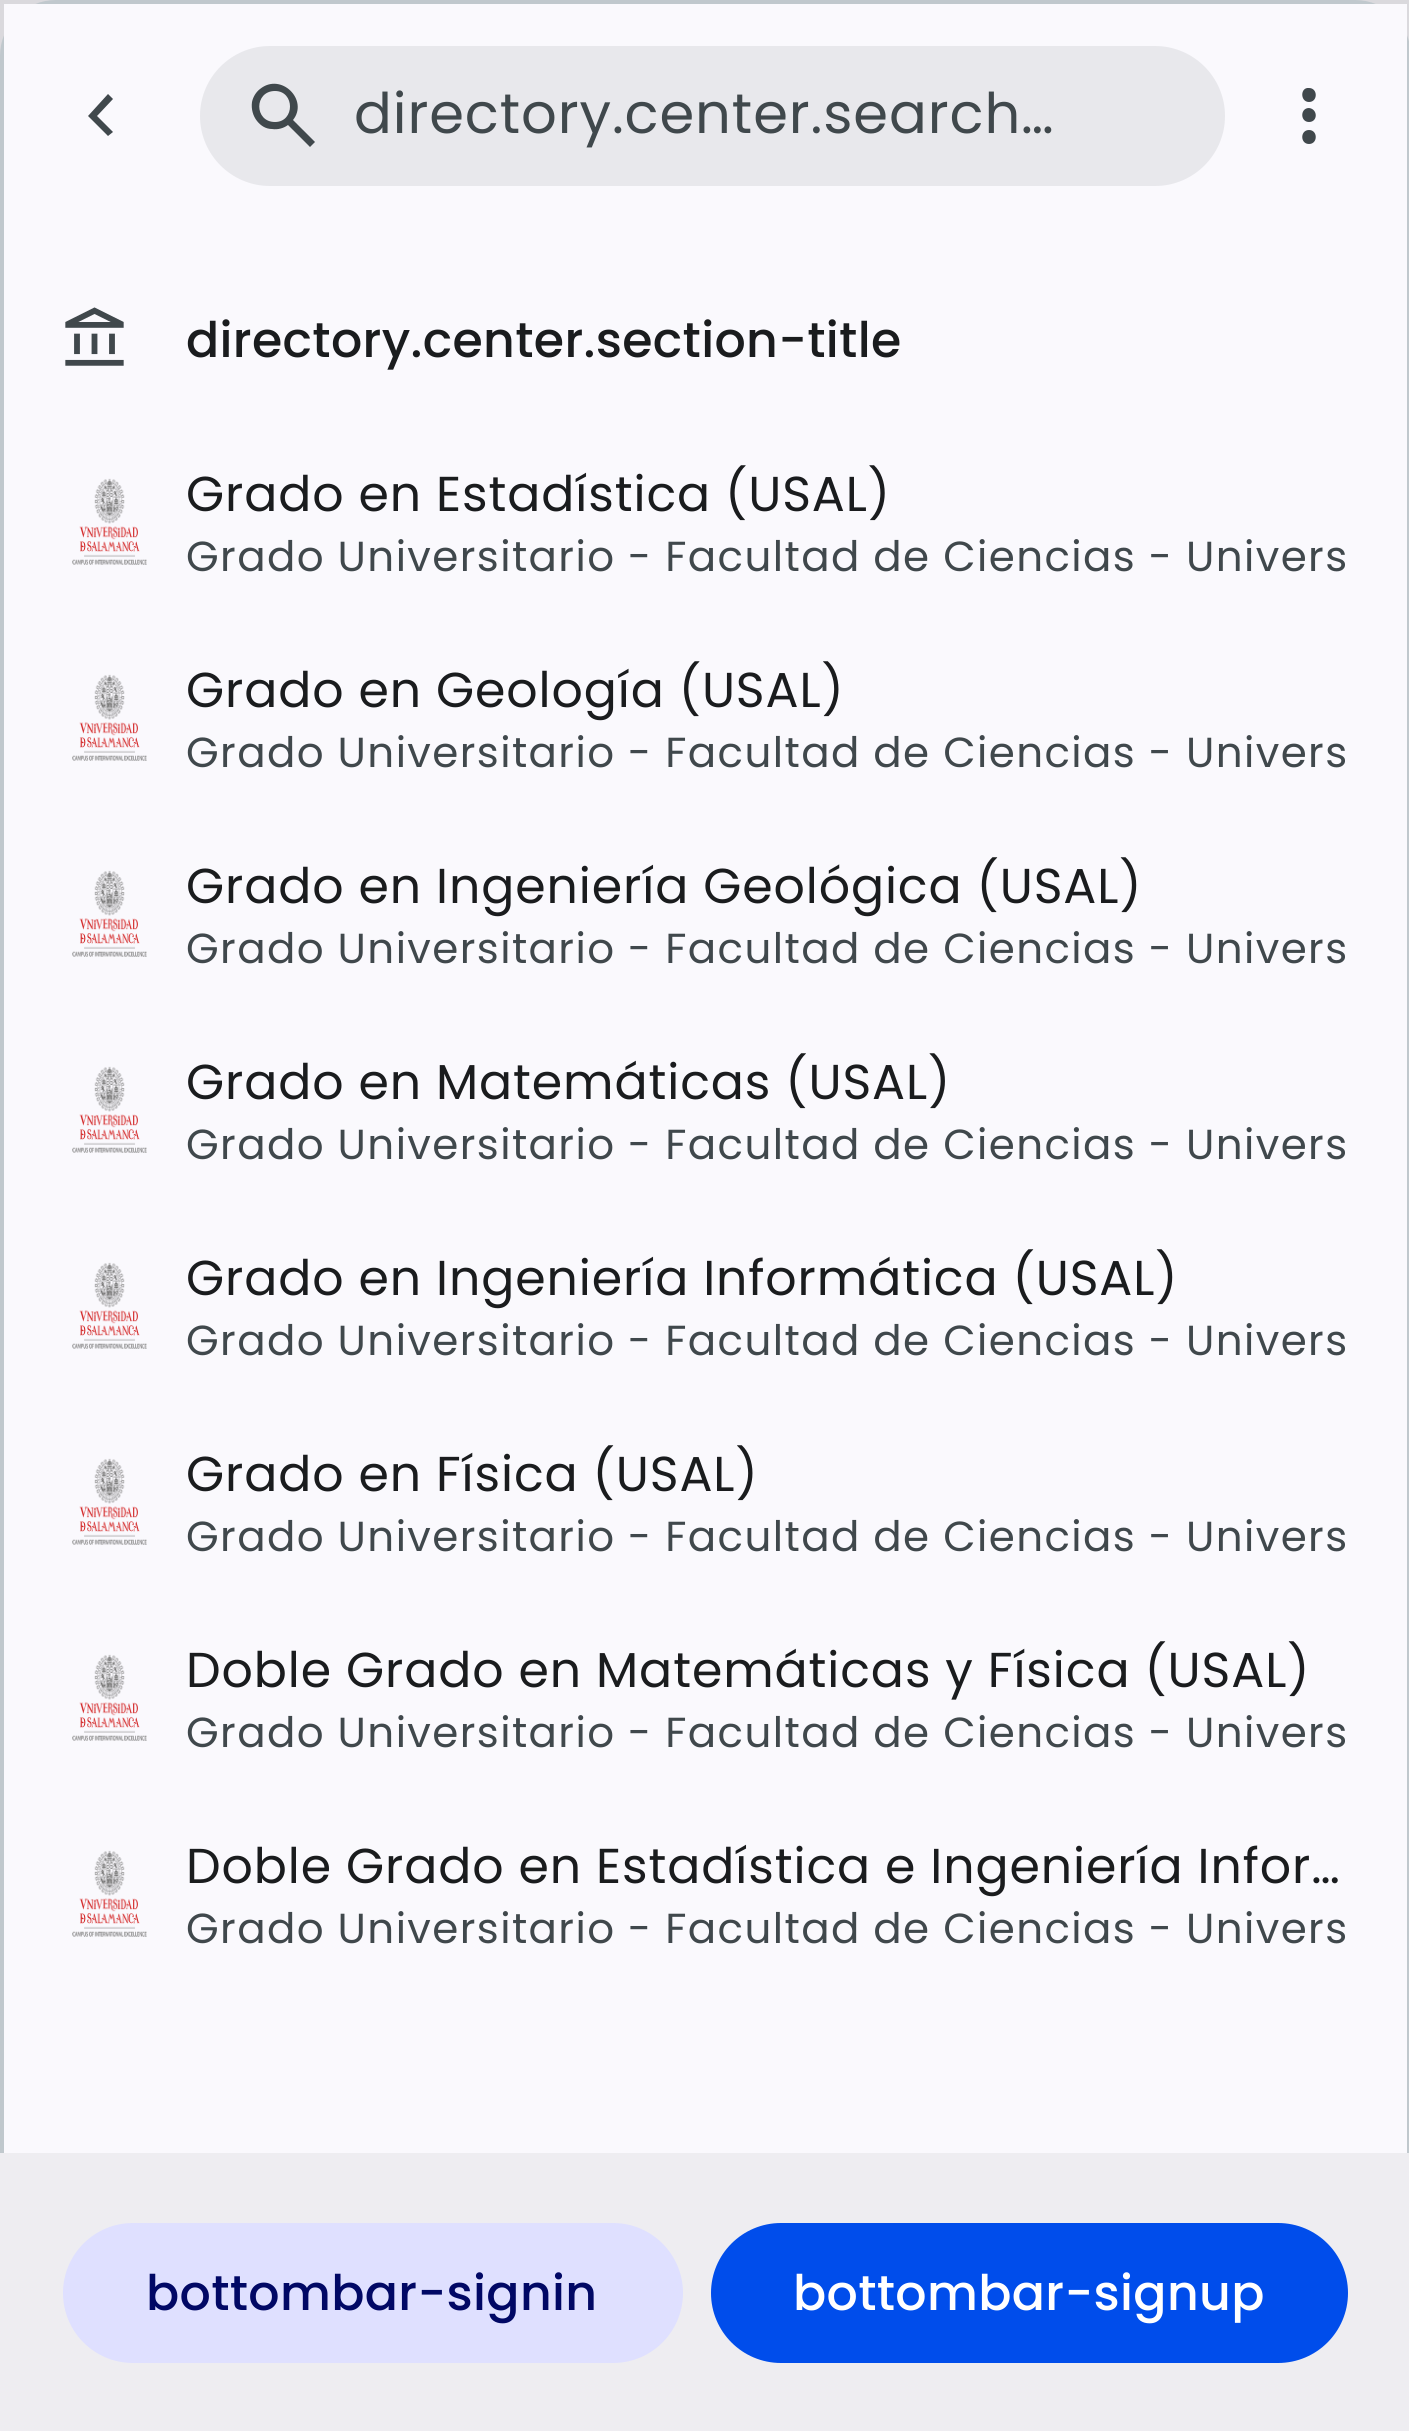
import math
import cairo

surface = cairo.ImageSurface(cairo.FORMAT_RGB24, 1409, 2431)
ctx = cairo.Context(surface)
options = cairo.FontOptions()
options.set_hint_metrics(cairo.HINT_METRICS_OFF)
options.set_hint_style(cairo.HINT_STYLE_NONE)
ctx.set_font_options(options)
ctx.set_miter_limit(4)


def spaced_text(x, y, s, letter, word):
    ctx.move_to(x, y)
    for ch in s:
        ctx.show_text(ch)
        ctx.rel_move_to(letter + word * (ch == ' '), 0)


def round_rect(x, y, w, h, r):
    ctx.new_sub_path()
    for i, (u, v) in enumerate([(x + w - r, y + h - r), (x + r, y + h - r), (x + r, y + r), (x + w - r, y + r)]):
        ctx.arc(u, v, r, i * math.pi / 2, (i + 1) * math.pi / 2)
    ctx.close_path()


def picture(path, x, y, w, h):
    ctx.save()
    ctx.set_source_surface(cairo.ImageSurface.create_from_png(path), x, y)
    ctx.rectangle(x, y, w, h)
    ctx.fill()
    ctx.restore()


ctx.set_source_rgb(0.855, 0.851, 0.867)
ctx.paint()
round_rect(2, 2, 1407, 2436, 54)
ctx.set_source_rgb(0.753, 0.784, 0.804)
ctx.set_line_width(4)
ctx.stroke()
ctx.set_source_rgb(0.98, 0.976, 0.992)
ctx.rectangle(4, 4, 1403, 2149)
ctx.fill()
ctx.set_source_rgb(0.251, 0.282, 0.298)
ctx.new_path()
ctx.move_to(108, 136)
ctx.line_to(88, 116)
ctx.line_to(108, 94)
ctx.line_to(113, 99)
ctx.line_to(97, 116)
ctx.line_to(113, 132)
ctx.close_path()
ctx.fill()
ctx.set_source_rgb(0.91, 0.91, 0.922)
round_rect(200, 46, 1025, 140, 70)
ctx.fill()
ctx.set_source_rgb(0.251, 0.282, 0.298)
ctx.new_path()
ctx.move_to(310, 147)
ctx.line_to(288, 125)
ctx.curve_to(284, 128, 278, 130, 272, 129)
ctx.curve_to(266, 129, 261, 126, 257, 121)
ctx.curve_to(253, 116, 251, 109, 252, 102)
ctx.curve_to(253, 97, 256, 92, 260, 89)
ctx.curve_to(281, 72, 309, 100, 293, 120)
ctx.line_to(315, 142)
ctx.close_path()
ctx.move_to(275, 122)
ctx.curve_to(295, 122, 295, 91, 275, 91)
ctx.curve_to(254, 91, 254, 122, 275, 122)
ctx.close_path()
ctx.fill()
ctx.select_font_face("Poppins")
ctx.set_font_size(56)
spaced_text(354, 133, "directory.center.search…", 0.9, 0)
ctx.new_path()
ctx.move_to(1309, 144)
ctx.curve_to(1300, 144, 1300, 130, 1309, 130)
ctx.curve_to(1318, 130, 1318, 144, 1309, 144)
ctx.close_path()
ctx.move_to(1309, 122)
ctx.curve_to(1300, 122, 1300, 108, 1309, 108)
ctx.curve_to(1318, 109, 1318, 122, 1309, 122)
ctx.close_path()
ctx.move_to(1309, 102)
ctx.curve_to(1300, 102, 1300, 87, 1309, 88)
ctx.curve_to(1318, 88, 1318, 102, 1309, 102)
ctx.close_path()
ctx.fill()
picture("img1.png", 65, 307, 59, 59)
ctx.select_font_face("Poppins Medium")
ctx.set_font_size(49)
ctx.set_source_rgb(0.102, 0.11, 0.118)
spaced_text(186, 357, "directory.center.section-title", 0.35, 0)
picture("img2.png", 72, 478, 75, 87)
ctx.select_font_face("Poppins")
spaced_text(186, 511, "Grado en Estadística (USAL)", 0.9, 0)
ctx.set_font_size(42)
ctx.set_source_rgb(0.251, 0.282, 0.298)
spaced_text(186, 571, "Grado Universitario - Facultad de Ciencias - Univers", 1.4, 0)
picture("img2.png", 72, 674, 75, 87)
ctx.set_font_size(49)
ctx.set_source_rgb(0.102, 0.11, 0.118)
spaced_text(186, 707, "Grado en Geología (USAL)", 0.9, 0)
ctx.set_font_size(42)
ctx.set_source_rgb(0.251, 0.282, 0.298)
spaced_text(186, 767, "Grado Universitario - Facultad de Ciencias - Univers", 1.4, 0)
picture("img2.png", 72, 870, 75, 87)
ctx.set_font_size(49)
ctx.set_source_rgb(0.102, 0.11, 0.118)
spaced_text(186, 903, "Grado en Ingeniería Geológica (USAL)", 0.9, 0)
ctx.set_font_size(42)
ctx.set_source_rgb(0.251, 0.282, 0.298)
spaced_text(186, 963, "Grado Universitario - Facultad de Ciencias - Univers", 1.4, 0)
picture("img2.png", 72, 1066, 75, 87)
ctx.set_font_size(49)
ctx.set_source_rgb(0.102, 0.11, 0.118)
spaced_text(186, 1099, "Grado en Matemáticas (USAL)", 0.9, 0)
ctx.set_font_size(42)
ctx.set_source_rgb(0.251, 0.282, 0.298)
spaced_text(186, 1159, "Grado Universitario - Facultad de Ciencias - Univers", 1.4, 0)
picture("img2.png", 72, 1262, 75, 87)
ctx.set_font_size(49)
ctx.set_source_rgb(0.102, 0.11, 0.118)
spaced_text(186, 1295, "Grado en Ingeniería Informática (USAL)", 0.9, 0)
ctx.set_font_size(42)
ctx.set_source_rgb(0.251, 0.282, 0.298)
spaced_text(186, 1355, "Grado Universitario - Facultad de Ciencias - Univers", 1.4, 0)
picture("img2.png", 72, 1458, 75, 87)
ctx.set_font_size(49)
ctx.set_source_rgb(0.102, 0.11, 0.118)
spaced_text(186, 1491, "Grado en Física (USAL)", 0.9, 0)
ctx.set_font_size(42)
ctx.set_source_rgb(0.251, 0.282, 0.298)
spaced_text(186, 1551, "Grado Universitario - Facultad de Ciencias - Univers", 1.4, 0)
picture("img2.png", 72, 1654, 75, 87)
ctx.set_font_size(49)
ctx.set_source_rgb(0.102, 0.11, 0.118)
spaced_text(186, 1687, "Doble Grado en Matemáticas y Física (USAL)", 0.9, 0)
ctx.set_font_size(42)
ctx.set_source_rgb(0.251, 0.282, 0.298)
spaced_text(186, 1747, "Grado Universitario - Facultad de Ciencias - Univers", 1.4, 0)
picture("img2.png", 72, 1850, 75, 87)
ctx.set_font_size(49)
ctx.set_source_rgb(0.102, 0.11, 0.118)
spaced_text(186, 1883, "Doble Grado en Estadística e Ingeniería Infor…", 0.9, 0)
ctx.set_font_size(42)
ctx.set_source_rgb(0.251, 0.282, 0.298)
spaced_text(186, 1943, "Grado Universitario - Facultad de Ciencias - Univers", 1.4, 0)
ctx.set_source_rgb(0.933, 0.929, 0.945)
ctx.rectangle(0, 2153, 1409, 278)
ctx.fill()
ctx.set_source_rgb(0.875, 0.878, 1)
round_rect(63, 2223, 620, 140, 70)
ctx.fill()
ctx.select_font_face("Poppins Medium")
ctx.set_font_size(49)
ctx.set_source_rgb(0.004, 0.035, 0.396)
spaced_text(146, 2310, "bottombar-signin", 0.35, 0)
ctx.set_source_rgb(0, 0.302, 0.918)
round_rect(711, 2223, 637, 140, 70)
ctx.fill()
ctx.set_source_rgb(1, 1, 1)
spaced_text(793, 2310, "bottombar-signup", 0.35, 0)
surface.write_to_png("page.png")
